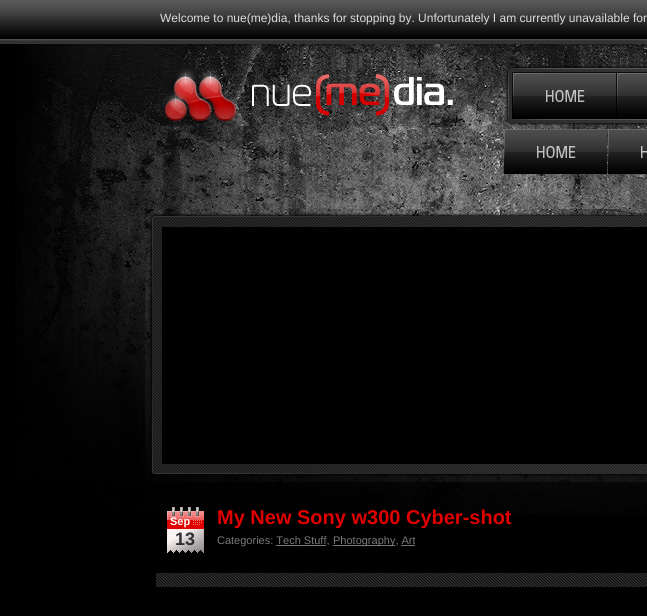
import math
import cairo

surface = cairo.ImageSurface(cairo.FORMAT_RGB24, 647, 616)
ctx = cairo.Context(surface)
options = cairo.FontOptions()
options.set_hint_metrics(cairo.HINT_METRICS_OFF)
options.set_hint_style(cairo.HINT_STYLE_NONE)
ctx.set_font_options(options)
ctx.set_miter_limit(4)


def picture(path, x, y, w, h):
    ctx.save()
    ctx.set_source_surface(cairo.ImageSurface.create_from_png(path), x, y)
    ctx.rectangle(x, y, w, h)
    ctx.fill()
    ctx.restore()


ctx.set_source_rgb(0, 0, 0)
ctx.paint()
picture("img1.png", 0, 0, 647, 44)
picture("img2.png", 15, 40, 632, 475)
ctx.select_font_face("Liberation Sans")
ctx.set_font_size(12)
ctx.set_source_rgb(0.867, 0.867, 0.867)
ctx.move_to(160, 22)
ctx.show_text("Welcome to nue(me)dia, thanks for stopping by. Unfortunately I am currently unavailable for")
picture("img3.png", 160, 63, 296, 63)
picture("img4.png", 503, 62, 144, 67)
picture("img5.png", 504, 129, 103, 45)
picture("img6.png", 608, 129, 39, 45)
picture("img7.png", 145, 209, 502, 273)
picture("img8.png", 167, 507, 37, 46)
ctx.select_font_face("Liberation Sans", cairo.FONT_SLANT_NORMAL, cairo.FONT_WEIGHT_BOLD)
ctx.set_font_size(11)
ctx.set_source_rgb(1, 1, 1)
ctx.move_to(170, 525)
ctx.show_text("Sep")
ctx.set_font_size(18)
ctx.set_source_rgb(0.18, 0.18, 0.18)
ctx.move_to(175, 545)
ctx.show_text("13")
ctx.set_font_size(20)
ctx.set_source_rgb(0.882, 0, 0)
ctx.move_to(217, 524)
ctx.show_text("My New Sony w300 Cyber-shot")
ctx.select_font_face("Liberation Sans")
ctx.set_font_size(11)
ctx.set_source_rgb(0.475, 0.475, 0.475)
ctx.move_to(217, 544)
ctx.show_text("Categories: Tech Stuff,")
ctx.rectangle(333, 545, 62, 1)
ctx.fill()
ctx.move_to(333, 544)
ctx.show_text("Photography, Art")
ctx.rectangle(276, 545, 50, 1)
ctx.fill()
ctx.rectangle(401, 545, 14, 1)
ctx.fill()
picture("img9.png", 156, 573, 491, 14)
surface.write_to_png("page.png")
